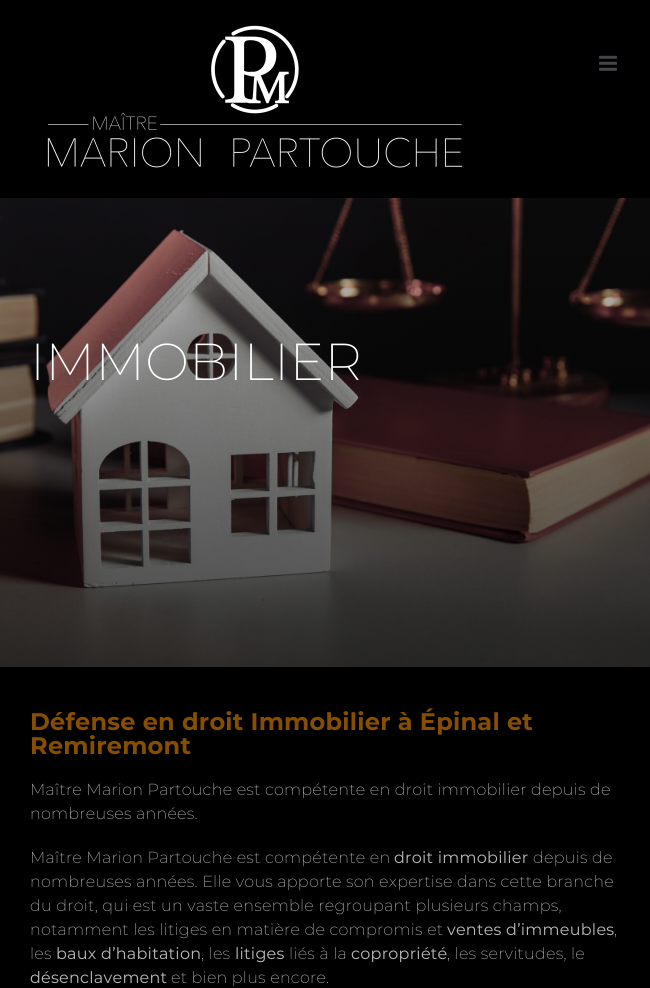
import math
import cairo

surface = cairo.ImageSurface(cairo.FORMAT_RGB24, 650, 988)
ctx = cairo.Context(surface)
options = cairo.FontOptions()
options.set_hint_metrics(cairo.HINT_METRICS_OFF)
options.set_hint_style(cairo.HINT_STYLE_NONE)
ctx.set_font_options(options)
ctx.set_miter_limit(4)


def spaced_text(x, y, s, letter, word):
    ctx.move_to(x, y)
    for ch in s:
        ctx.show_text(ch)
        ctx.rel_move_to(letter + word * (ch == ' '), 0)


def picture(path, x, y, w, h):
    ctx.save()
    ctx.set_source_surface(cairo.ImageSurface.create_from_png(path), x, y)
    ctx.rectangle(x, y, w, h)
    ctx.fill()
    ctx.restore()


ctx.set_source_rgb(1, 1, 1)
ctx.paint()
ctx.set_source_rgb(0, 0, 0)
ctx.rectangle(0, 0, 650, 198)
ctx.fill()
picture("img1.png", 47, 25, 416, 143)
picture("img2.png", 599, 55, 18, 16)
picture("img3.png", 0, 198, 650, 469)
ctx.select_font_face("Montserrat ExtraLight")
ctx.set_font_size(52)
ctx.set_source_rgb(1, 1, 1)
spaced_text(30, 380, "IMMOBILIER", 0.25, 0)
ctx.set_source_rgb(0, 0, 0)
ctx.rectangle(0, 667, 650, 321)
ctx.fill()
ctx.select_font_face("Montserrat", cairo.FONT_SLANT_NORMAL, cairo.FONT_WEIGHT_BOLD)
ctx.set_font_size(24)
ctx.set_source_rgb(0.529, 0.306, 0)
spaced_text(30, 730, "Défense en droit Immobilier à Épinal et", 0.25, 0)
spaced_text(30, 754, "Remiremont", 0.25, 0)
ctx.select_font_face("Montserrat ExtraLight")
ctx.set_font_size(16)
ctx.set_source_rgb(0.729, 0.729, 0.729)
spaced_text(30, 795, "Maître Marion Partouche est compétente en droit immobilier depuis de", 0.25, 0)
spaced_text(30, 819, "nombreuses années.", 0.25, 0)
spaced_text(30, 863, "Maître Marion Partouche est compétente en", 0.25, 0)
ctx.select_font_face("Montserrat")
spaced_text(394, 863, "droit immobilier", 0.25, 0)
ctx.select_font_face("Montserrat ExtraLight")
spaced_text(533, 863, "depuis de", 0.25, 0)
spaced_text(30, 887, "nombreuses années. Elle vous apporte son expertise dans cette branche", 0.25, 0)
spaced_text(30, 911, "du droit, qui est un vaste ensemble regroupant plusieurs champs,", 0.25, 0)
spaced_text(30, 935, "notamment les litiges en matière de compromis et", 0.25, 0)
ctx.select_font_face("Montserrat")
spaced_text(447, 935, "ventes d’immeubles", 0.25, 0)
ctx.select_font_face("Montserrat ExtraLight")
spaced_text(614, 935, ",", 0.25, 0)
spaced_text(30, 959, "les", 0.25, 0)
ctx.select_font_face("Montserrat")
spaced_text(56, 959, "baux d’habitation", 0.25, 0)
ctx.select_font_face("Montserrat ExtraLight")
spaced_text(201, 959, ", les", 0.25, 0)
ctx.select_font_face("Montserrat")
spaced_text(235, 959, "litiges", 0.25, 0)
ctx.select_font_face("Montserrat ExtraLight")
spaced_text(289, 959, "liés à la", 0.25, 0)
ctx.select_font_face("Montserrat")
spaced_text(351, 959, "copropriété", 0.25, 0)
ctx.select_font_face("Montserrat ExtraLight")
spaced_text(447, 959, ", les servitudes, le", 0.25, 0)
ctx.select_font_face("Montserrat")
spaced_text(30, 983, "désenclavement", 0.25, 0)
ctx.select_font_face("Montserrat ExtraLight")
spaced_text(171, 983, "et bien plus encore.", 0.25, 0)
surface.write_to_png("page.png")
